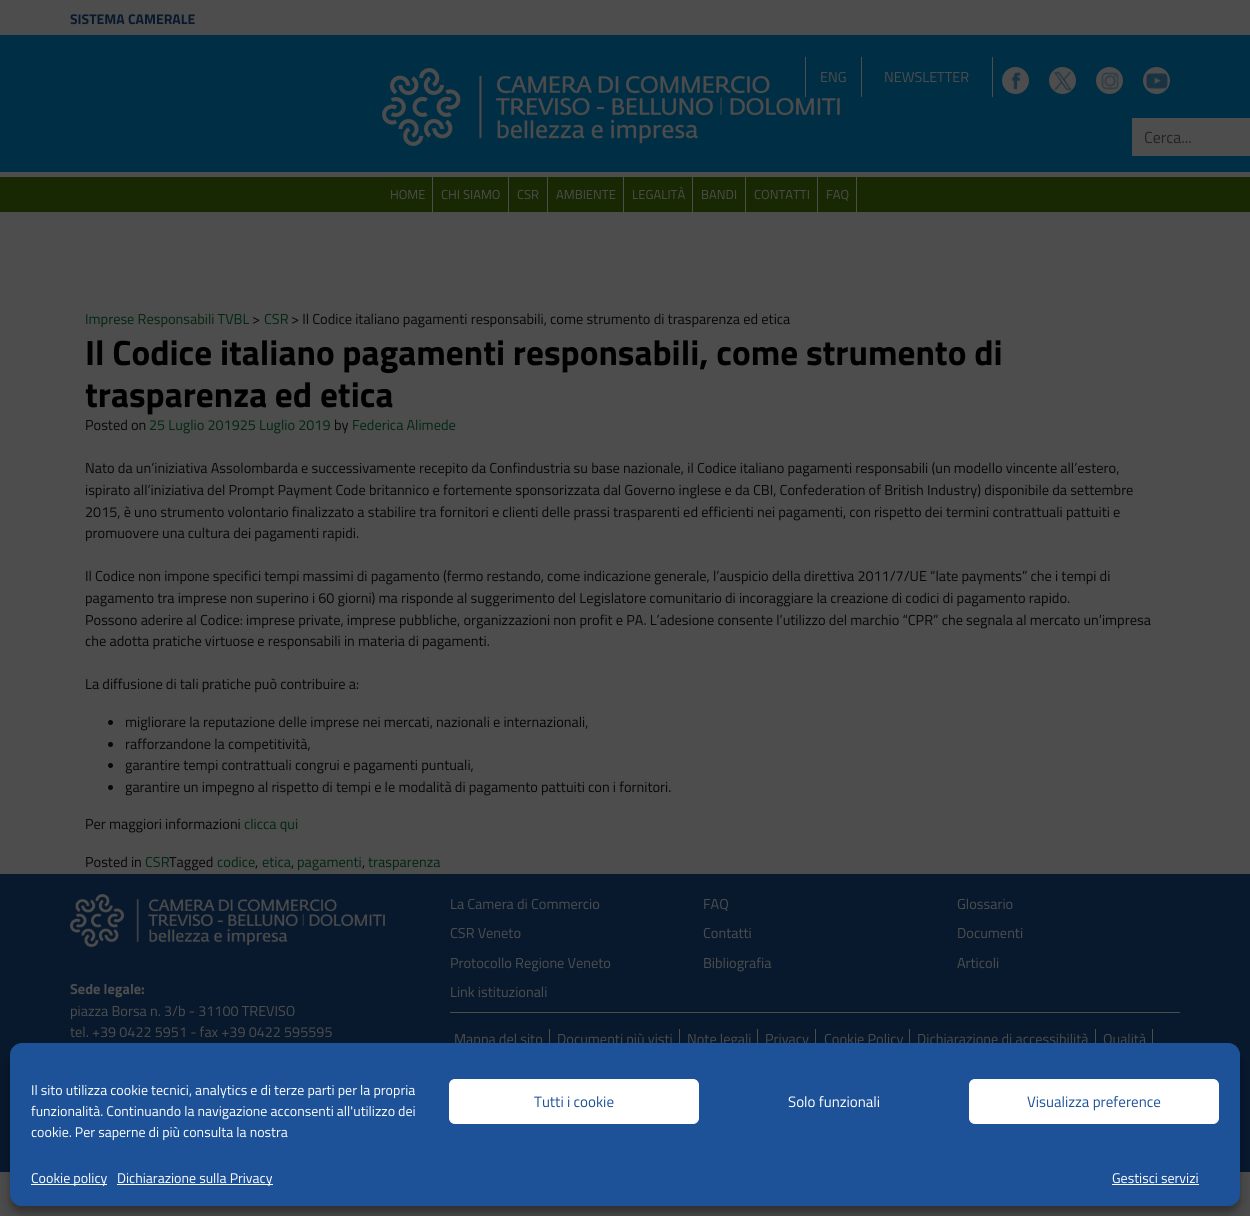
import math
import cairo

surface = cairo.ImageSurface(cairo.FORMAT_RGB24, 1250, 1216)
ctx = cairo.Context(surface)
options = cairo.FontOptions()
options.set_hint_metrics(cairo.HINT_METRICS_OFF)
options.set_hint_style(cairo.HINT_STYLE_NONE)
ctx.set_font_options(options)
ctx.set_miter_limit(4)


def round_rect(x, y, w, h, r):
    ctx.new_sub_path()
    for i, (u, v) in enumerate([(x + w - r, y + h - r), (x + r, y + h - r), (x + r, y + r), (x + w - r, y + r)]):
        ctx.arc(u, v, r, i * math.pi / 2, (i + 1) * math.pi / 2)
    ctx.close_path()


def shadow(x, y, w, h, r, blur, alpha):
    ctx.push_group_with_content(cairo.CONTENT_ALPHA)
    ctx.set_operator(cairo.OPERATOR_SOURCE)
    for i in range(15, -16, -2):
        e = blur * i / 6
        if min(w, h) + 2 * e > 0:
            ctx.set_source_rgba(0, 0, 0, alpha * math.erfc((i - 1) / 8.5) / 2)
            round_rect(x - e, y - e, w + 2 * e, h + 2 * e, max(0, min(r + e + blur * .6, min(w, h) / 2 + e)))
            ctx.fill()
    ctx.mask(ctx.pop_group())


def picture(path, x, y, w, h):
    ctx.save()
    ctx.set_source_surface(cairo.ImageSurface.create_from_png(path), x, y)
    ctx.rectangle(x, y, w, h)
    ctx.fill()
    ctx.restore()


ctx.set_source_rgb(0.302, 0.302, 0.302)
ctx.paint()
ctx.select_font_face("Titillium Web", cairo.FONT_SLANT_NORMAL, cairo.FONT_WEIGHT_BOLD)
ctx.set_font_size(14)
ctx.set_source_rgb(0.035, 0.098, 0.18)
ctx.move_to(70, 24)
ctx.show_text("SISTEMA CAMERALE")
ctx.set_source_rgb(0, 0.18, 0.267)
ctx.rectangle(0, 35, 1250, 137)
ctx.fill()
ctx.set_source_rgb(0.302, 0.302, 0.302)
ctx.rectangle(805, 57, 1, 40)
ctx.fill()
ctx.select_font_face("Titillium Web")
ctx.set_font_size(14.4)
ctx.move_to(820, 82)
ctx.show_text("ENG")
ctx.rectangle(992, 57, 1, 40)
ctx.fill()
ctx.rectangle(861, 57, 1, 40)
ctx.fill()
ctx.move_to(884, 82)
ctx.show_text("NEWSLETTER")
ctx.new_path()
ctx.arc(1015.5, 80.5, 13.5, 0, 2 * math.pi)
ctx.fill()
picture("img1.png", 1011, 72, 10, 18)
ctx.arc(1062.5, 80.5, 13.5, 0, 2 * math.pi)
ctx.fill()
picture("img2.png", 1053, 71, 19, 20)
ctx.arc(1109.5, 80.5, 13.5, 0, 2 * math.pi)
ctx.fill()
picture("img3.png", 1101, 72, 18, 18)
ctx.arc(1156.5, 80.5, 13.5, 0, 2 * math.pi)
ctx.fill()
picture("img4.png", 1146, 73, 22, 16)
picture("img5.png", 382, 68, 458, 78)
ctx.rectangle(1132, 118, 118, 38)
ctx.fill()
ctx.set_font_size(16)
ctx.set_source_rgb(0.125, 0.137, 0.149)
ctx.move_to(1144, 143)
ctx.show_text("Cerca...")
ctx.set_source_rgb(0.09, 0.157, 0.008)
ctx.rectangle(0, 177, 1250, 35)
ctx.fill()
ctx.set_source_rgb(0.302, 0.302, 0.302)
ctx.rectangle(432, 177, 1, 35)
ctx.fill()
ctx.set_font_size(13)
ctx.move_to(390, 199)
ctx.show_text("HOME")
ctx.rectangle(508, 177, 1, 35)
ctx.fill()
ctx.move_to(441, 199)
ctx.show_text("CHI SIAMO")
ctx.rectangle(547, 177, 1, 35)
ctx.fill()
ctx.move_to(517, 199)
ctx.show_text("CSR")
ctx.rectangle(623, 177, 1, 35)
ctx.fill()
ctx.move_to(556, 199)
ctx.show_text("AMBIENTE")
ctx.rectangle(692, 177, 1, 35)
ctx.fill()
ctx.move_to(632, 199)
ctx.show_text("LEGALITÀ")
ctx.rectangle(745, 177, 1, 35)
ctx.fill()
ctx.move_to(701, 199)
ctx.show_text("BANDI")
ctx.rectangle(817, 177, 1, 35)
ctx.fill()
ctx.move_to(754, 199)
ctx.show_text("CONTATTI")
ctx.rectangle(856, 177, 1, 35)
ctx.fill()
ctx.move_to(826, 199)
ctx.show_text("FAQ")
ctx.set_font_size(14.4)
ctx.set_source_rgb(0, 0.153, 0.067)
ctx.move_to(85, 324)
ctx.show_text("Imprese Responsabili TVBL")
ctx.set_source_rgb(0.031, 0.031, 0.031)
ctx.move_to(252, 324)
ctx.show_text(">")
ctx.set_source_rgb(0, 0.153, 0.067)
ctx.move_to(264, 324)
ctx.show_text("CSR")
ctx.set_source_rgb(0.031, 0.031, 0.031)
ctx.move_to(291, 324)
ctx.show_text("> Il Codice italiano pagamenti responsabili, come strumento di trasparenza ed etica")
ctx.select_font_face("Titillium Web", cairo.FONT_SLANT_NORMAL, cairo.FONT_WEIGHT_BOLD)
ctx.set_font_size(35.2)
ctx.set_source_rgb(0, 0, 0)
ctx.move_to(85, 365)
ctx.show_text("Il Codice italiano pagamenti responsabili, come strumento di")
ctx.move_to(85, 407)
ctx.show_text("trasparenza ed etica")
ctx.select_font_face("Titillium Web")
ctx.set_font_size(14.4)
ctx.set_source_rgb(0.031, 0.031, 0.031)
ctx.move_to(85, 430)
ctx.show_text("Posted on")
ctx.set_source_rgb(0, 0.153, 0.067)
ctx.move_to(149, 430)
ctx.show_text("25 Luglio 201925 Luglio 2019")
ctx.set_source_rgb(0.031, 0.031, 0.031)
ctx.move_to(334, 430)
ctx.show_text("by")
ctx.set_source_rgb(0, 0.153, 0.067)
ctx.move_to(352, 430)
ctx.show_text("Federica Alimede")
ctx.set_source_rgb(0.031, 0.031, 0.031)
ctx.move_to(85, 473)
ctx.show_text("Nato da un’iniziativa Assolombarda e successivamente recepito da Confindustria su base nazionale, il Codice italiano pagamenti responsabili (un modello vincente all’estero,")
ctx.move_to(85, 495)
ctx.show_text("ispirato all’iniziativa del Prompt Payment Code britannico e fortemente sponsorizzata dal Governo inglese e da CBI, Confederation of British Industry) disponibile da settembre")
ctx.move_to(85, 517)
ctx.show_text("2015, è uno strumento volontario finalizzato a stabilire tra fornitori e clienti delle prassi trasparenti ed efficienti nei pagamenti, con rispetto dei termini contrattuali pattuiti e")
ctx.move_to(85, 538)
ctx.show_text("promuovere una cultura dei pagamenti rapidi.")
ctx.move_to(85, 581)
ctx.show_text("Il Codice non impone specifici tempi massimi di pagamento (fermo restando, come indicazione generale, l’auspicio della direttiva 2011/7/UE “late payments” che i tempi di")
ctx.move_to(85, 603)
ctx.show_text("pagamento tra imprese non superino i 60 giorni) ma risponde al suggerimento del Legislatore comunitario di incoraggiare la creazione di codici di pagamento rapido.")
ctx.move_to(85, 625)
ctx.show_text("Possono aderire al Codice: imprese private, imprese pubbliche, organizzazioni non profit e PA. L’adesione consente l’utilizzo del marchio “CPR” che segnala al mercato un’impresa")
ctx.move_to(85, 646)
ctx.show_text("che adotta pratiche virtuose e responsabili in materia di pagamenti.")
ctx.move_to(85, 689)
ctx.show_text("La diffusione di tali pratiche può contribuire a:")
ctx.new_path()
ctx.arc(110.5, 722.5, 2.5, 0, 2 * math.pi)
ctx.fill()
ctx.move_to(125, 727)
ctx.show_text("migliorare la reputazione delle imprese nei mercati, nazionali e internazionali,")
ctx.new_path()
ctx.arc(110.5, 744.5, 2.5, 0, 2 * math.pi)
ctx.fill()
ctx.move_to(125, 749)
ctx.show_text("rafforzandone la competitività,")
ctx.new_path()
ctx.arc(110.5, 765.5, 2.5, 0, 2 * math.pi)
ctx.fill()
ctx.move_to(125, 770)
ctx.show_text("garantire tempi contrattuali congrui e pagamenti puntuali,")
ctx.new_path()
ctx.arc(110.5, 787.5, 2.5, 0, 2 * math.pi)
ctx.fill()
ctx.move_to(125, 792)
ctx.show_text("garantire un impegno al rispetto di tempi e le modalità di pagamento pattuiti con i fornitori.")
ctx.move_to(85, 829)
ctx.show_text("Per maggiori informazioni")
ctx.set_source_rgb(0, 0.153, 0.067)
ctx.move_to(244, 829)
ctx.show_text("clicca qui")
ctx.set_source_rgb(0.031, 0.031, 0.031)
ctx.move_to(85, 867)
ctx.show_text("Posted in")
ctx.set_source_rgb(0, 0.153, 0.067)
ctx.move_to(145, 867)
ctx.show_text("CSR")
ctx.set_source_rgb(0.031, 0.031, 0.031)
ctx.move_to(169, 867)
ctx.show_text("Tagged")
ctx.set_source_rgb(0, 0.153, 0.067)
ctx.move_to(217, 867)
ctx.show_text("codice")
ctx.set_source_rgb(0.031, 0.031, 0.031)
ctx.move_to(255, 867)
ctx.show_text(",")
ctx.set_source_rgb(0, 0.153, 0.067)
ctx.move_to(262, 867)
ctx.show_text("etica")
ctx.set_source_rgb(0.031, 0.031, 0.031)
ctx.move_to(291, 867)
ctx.show_text(",")
ctx.set_source_rgb(0, 0.153, 0.067)
ctx.move_to(297, 867)
ctx.show_text("pagamenti")
ctx.set_source_rgb(0.031, 0.031, 0.031)
ctx.move_to(362, 867)
ctx.show_text(",")
ctx.set_source_rgb(0, 0.153, 0.067)
ctx.move_to(368, 867)
ctx.show_text("trasparenza")
ctx.set_source_rgb(0.035, 0.098, 0.18)
ctx.rectangle(0, 874, 1250, 298)
ctx.fill()
picture("img6.png", 70, 894, 315, 53)
ctx.select_font_face("Titillium Web", cairo.FONT_SLANT_NORMAL, cairo.FONT_WEIGHT_BOLD)
ctx.set_source_rgb(0.302, 0.302, 0.302)
ctx.move_to(70, 994)
ctx.show_text("Sede legale:")
ctx.select_font_face("Titillium Web")
ctx.move_to(70, 1016)
ctx.show_text("piazza Borsa n. 3/b - 31100 TREVISO")
ctx.move_to(70, 1037)
ctx.show_text("tel. +39 0422 5951 - fax +39 0422 595595")
ctx.move_to(450, 909)
ctx.show_text("La Camera di Commercio")
ctx.move_to(450, 938)
ctx.show_text("CSR Veneto")
ctx.move_to(450, 968)
ctx.show_text("Protocollo Regione Veneto")
ctx.move_to(450, 997)
ctx.show_text("Link istituzionali")
ctx.move_to(703, 909)
ctx.show_text("FAQ")
ctx.move_to(703, 938)
ctx.show_text("Contatti")
ctx.move_to(703, 968)
ctx.show_text("Bibliografia")
ctx.move_to(957, 909)
ctx.show_text("Glossario")
ctx.move_to(957, 938)
ctx.show_text("Documenti")
ctx.move_to(957, 968)
ctx.show_text("Articoli")
ctx.rectangle(450, 1012, 730, 1)
ctx.fill()
ctx.rectangle(549, 1029, 1, 22)
ctx.fill()
ctx.move_to(454, 1044)
ctx.show_text("Mappa del sito")
ctx.rectangle(679, 1029, 1, 22)
ctx.fill()
ctx.move_to(557, 1044)
ctx.show_text("Documenti più visti")
ctx.rectangle(757, 1029, 1, 22)
ctx.fill()
ctx.move_to(687, 1044)
ctx.show_text("Note legali")
ctx.rectangle(815, 1029, 1, 22)
ctx.fill()
ctx.move_to(765, 1044)
ctx.show_text("Privacy")
ctx.rectangle(909, 1029, 1, 22)
ctx.fill()
ctx.move_to(824, 1044)
ctx.show_text("Cookie Policy")
ctx.rectangle(1095, 1029, 1, 22)
ctx.fill()
ctx.move_to(917, 1044)
ctx.show_text("Dichiarazione di accessibilità")
ctx.rectangle(1152, 1029, 1, 22)
ctx.fill()
ctx.move_to(1103, 1044)
ctx.show_text("Qualità")
ctx.set_source_rgb(0, 0, 0)
shadow(10, 1049, 1230, 163, 12, 3, 0.23)
shadow(10, 1053, 1230, 163, 12, 10, 0.19)
ctx.set_source_rgb(0.114, 0.322, 0.6)
round_rect(10.5, 1043.5, 1229, 162, 11.5)
ctx.fill_preserve()
ctx.set_line_width(1)
ctx.stroke()
ctx.set_font_size(14)
ctx.set_source_rgb(1, 1, 1)
ctx.move_to(31, 1095)
ctx.show_text("Il sito utilizza cookie tecnici, analytics e di terze parti per la propria")
ctx.move_to(31, 1116)
ctx.show_text("funzionalità. Continuando la navigazione acconsenti all'utilizzo dei")
ctx.move_to(31, 1137)
ctx.show_text("cookie. Per saperne di più consulta la nostra")
round_rect(449.5, 1079.5, 249, 44, 5.5)
ctx.fill_preserve()
ctx.stroke()
ctx.set_font_size(15)
ctx.set_source_rgb(0.114, 0.322, 0.6)
ctx.move_to(534, 1107)
ctx.show_text("Tutti i cookie")
ctx.set_source_rgb(1, 1, 1)
ctx.move_to(788, 1107)
ctx.show_text("Solo funzionali")
round_rect(969.5, 1079.5, 249, 44, 5.5)
ctx.fill_preserve()
ctx.stroke()
ctx.set_source_rgb(0.114, 0.322, 0.6)
ctx.move_to(1027, 1107)
ctx.show_text("Visualizza preference")
ctx.set_source_rgb(1, 1, 1)
ctx.rectangle(31, 1184, 76, 1)
ctx.fill()
ctx.set_font_size(14)
ctx.move_to(31, 1183)
ctx.show_text("Cookie policy")
ctx.rectangle(117, 1184, 156, 1)
ctx.fill()
ctx.move_to(117, 1183)
ctx.show_text("Dichiarazione sulla Privacy")
ctx.move_to(1112, 1183)
ctx.show_text("Gestisci servizi")
ctx.rectangle(1112, 1184, 87, 1)
ctx.fill()
surface.write_to_png("page.png")
